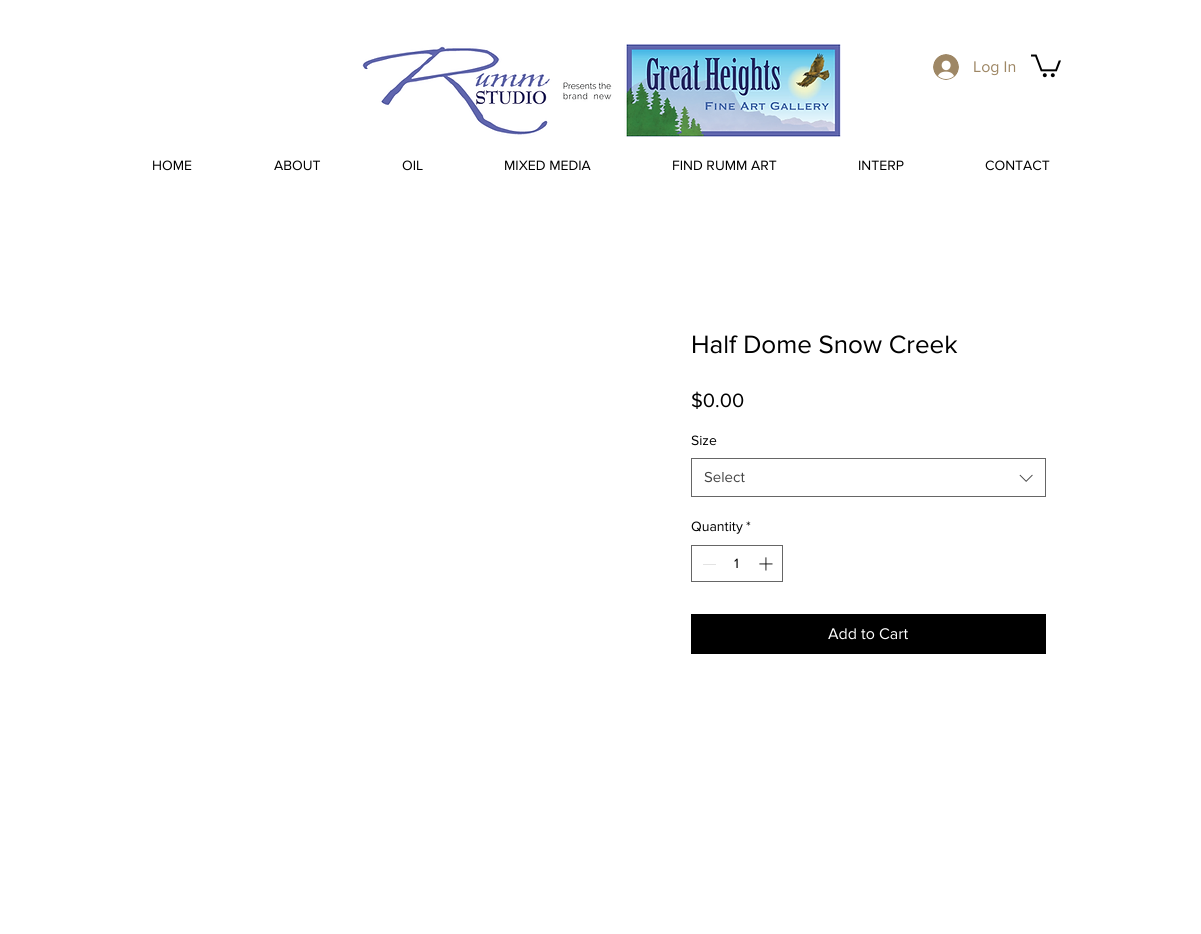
import math
import cairo

surface = cairo.ImageSurface(cairo.FORMAT_RGB24, 1201, 934)
ctx = cairo.Context(surface)
options = cairo.FontOptions()
options.set_hint_metrics(cairo.HINT_METRICS_OFF)
options.set_hint_style(cairo.HINT_STYLE_NONE)
ctx.set_font_options(options)
ctx.set_miter_limit(4)


def picture(path, x, y, w, h):
    ctx.save()
    ctx.set_source_surface(cairo.ImageSurface.create_from_png(path), x, y)
    ctx.rectangle(x, y, w, h)
    ctx.fill()
    ctx.restore()


ctx.set_source_rgb(1, 1, 1)
ctx.paint()
picture("img1.png", 362, 44, 479, 93)
picture("img2.png", 933, 54, 26, 26)
ctx.select_font_face("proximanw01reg")
ctx.set_font_size(16)
ctx.set_source_rgb(0.62, 0.529, 0.396)
ctx.move_to(973, 72)
ctx.show_text("Log In")
picture("img3.png", 1031, 54, 30, 24)
ctx.set_font_size(14)
ctx.set_source_rgb(0, 0, 0)
ctx.move_to(152, 170)
ctx.show_text("HOME")
ctx.move_to(274, 170)
ctx.show_text("ABOUT")
ctx.move_to(402, 170)
ctx.show_text("OIL")
ctx.move_to(504, 170)
ctx.show_text("MIXED MEDIA")
ctx.move_to(672, 170)
ctx.show_text("FIND RUMM ART")
ctx.move_to(858, 170)
ctx.show_text("INTERP")
ctx.move_to(985, 170)
ctx.show_text("CONTACT")
ctx.set_font_size(26)
ctx.move_to(691, 353)
ctx.show_text("Half Dome Snow Creek")
ctx.set_font_size(20)
ctx.move_to(691, 407)
ctx.show_text("$0.00")
ctx.set_font_size(14)
ctx.move_to(691, 445)
ctx.show_text("Size")
ctx.rectangle(691.5, 458.5, 354, 38)
ctx.set_source_rgb(0.4, 0.4, 0.4)
ctx.set_line_width(1)
ctx.stroke()
ctx.set_font_size(15)
ctx.set_source_rgb(0.267, 0.267, 0.267)
ctx.move_to(704, 482)
ctx.show_text("Select")
picture("img4.png", 1019, 474, 14, 8)
ctx.set_font_size(14)
ctx.set_source_rgb(0, 0, 0)
ctx.move_to(691, 531)
ctx.show_text("Quantity")
ctx.move_to(746, 531)
ctx.show_text("*")
ctx.rectangle(691.5, 545.5, 91, 36)
ctx.set_source_rgb(0.4, 0.4, 0.4)
ctx.stroke()
ctx.set_source_rgb(0.89, 0.89, 0.89)
ctx.rectangle(703, 564, 13, 1)
ctx.fill()
ctx.set_source_rgb(0, 0, 0)
ctx.move_to(734, 568)
ctx.show_text("1")
picture("img5.png", 759, 557, 14, 14)
ctx.rectangle(691, 614, 355, 40)
ctx.fill()
ctx.set_font_size(16)
ctx.set_source_rgb(1, 1, 1)
ctx.move_to(828, 639)
ctx.show_text("Add to Cart")
surface.write_to_png("page.png")
